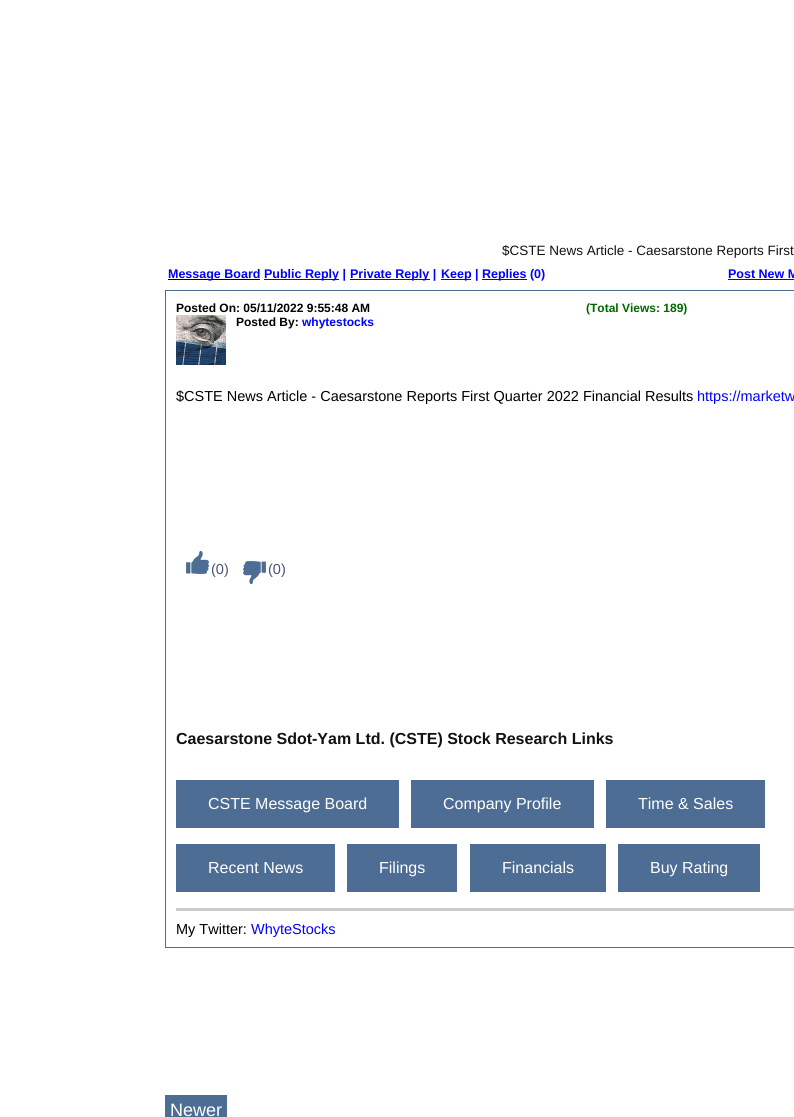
import math
import cairo

surface = cairo.ImageSurface(cairo.FORMAT_RGB24, 794, 1117)
ctx = cairo.Context(surface)
options = cairo.FontOptions()
options.set_hint_metrics(cairo.HINT_METRICS_OFF)
options.set_hint_style(cairo.HINT_STYLE_NONE)
ctx.set_font_options(options)
ctx.set_miter_limit(4)


def picture(path, x, y, w, h):
    ctx.save()
    ctx.set_source_surface(cairo.ImageSurface.create_from_png(path), x, y)
    ctx.rectangle(x, y, w, h)
    ctx.fill()
    ctx.restore()


ctx.set_source_rgb(1, 1, 1)
ctx.paint()
ctx.select_font_face("Liberation Sans")
ctx.set_font_size(13.5)
ctx.set_source_rgb(0.067, 0.067, 0.067)
ctx.move_to(502, 255)
ctx.show_text("$CSTE News Article - Caesarstone Reports First")
ctx.set_source_rgb(0, 0, 0)
ctx.rectangle(168, 279, 92, 1)
ctx.fill()
ctx.select_font_face("Liberation Sans", cairo.FONT_SLANT_NORMAL, cairo.FONT_WEIGHT_BOLD)
ctx.set_font_size(12.5)
ctx.set_source_rgb(0, 0, 1)
ctx.move_to(168, 278)
ctx.show_text("Message Board")
ctx.rectangle(264, 279, 75, 1)
ctx.fill()
ctx.move_to(264, 278)
ctx.show_text("Public Reply |")
ctx.rectangle(350, 279, 80, 1)
ctx.fill()
ctx.move_to(350, 278)
ctx.show_text("Private Reply |")
ctx.rectangle(441, 279, 30, 1)
ctx.fill()
ctx.move_to(441, 278)
ctx.show_text("Keep |")
ctx.rectangle(482, 279, 45, 1)
ctx.fill()
ctx.move_to(482, 278)
ctx.show_text("Replies (0)")
ctx.move_to(728, 278)
ctx.show_text("Post New M")
ctx.rectangle(728, 279, 66, 1)
ctx.fill()
ctx.rectangle(165.5, 290.5, 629, 657)
ctx.set_source_rgb(0.302, 0.427, 0.58)
ctx.set_line_width(1)
ctx.stroke()
ctx.set_font_size(12)
ctx.set_source_rgb(0, 0, 0)
ctx.move_to(176, 312)
ctx.show_text("Posted On: 05/11/2022 9:55:48 AM")
ctx.set_source_rgb(0, 0.4, 0)
ctx.move_to(586, 312)
ctx.show_text("(Total Views: 189)")
picture("img1.png", 176, 315, 50, 50)
ctx.set_source_rgb(0, 0, 0)
ctx.move_to(236, 326)
ctx.show_text("Posted By:")
ctx.set_source_rgb(0, 0, 1)
ctx.move_to(302, 326)
ctx.show_text("whytestocks")
ctx.select_font_face("Liberation Sans")
ctx.set_font_size(14.5)
ctx.set_source_rgb(0, 0, 0)
ctx.move_to(176, 401)
ctx.show_text("$CSTE News Article - Caesarstone Reports First Quarter 2022 Financial Results")
ctx.set_source_rgb(0, 0, 1)
ctx.move_to(697, 401)
ctx.show_text("https://marketw")
picture("img2.png", 186, 551, 23, 23)
ctx.set_source_rgb(0.278, 0.329, 0.447)
ctx.move_to(211, 574)
ctx.show_text("(0)")
picture("img3.png", 243, 561, 23, 23)
ctx.move_to(268, 574)
ctx.show_text("(0)")
ctx.select_font_face("Liberation Sans", cairo.FONT_SLANT_NORMAL, cairo.FONT_WEIGHT_BOLD)
ctx.set_font_size(16)
ctx.set_source_rgb(0.067, 0.067, 0.067)
ctx.move_to(176, 744)
ctx.show_text("Caesarstone Sdot-Yam Ltd. (CSTE) Stock Research Links")
ctx.set_source_rgb(0.302, 0.427, 0.58)
ctx.rectangle(176, 780, 223, 48)
ctx.fill()
ctx.select_font_face("Liberation Sans")
ctx.set_source_rgb(1, 1, 1)
ctx.move_to(208, 809)
ctx.show_text("CSTE Message Board")
ctx.set_source_rgb(0.302, 0.427, 0.58)
ctx.rectangle(411, 780, 183, 48)
ctx.fill()
ctx.set_source_rgb(1, 1, 1)
ctx.move_to(443, 809)
ctx.show_text("Company Profile")
ctx.set_source_rgb(0.302, 0.427, 0.58)
ctx.rectangle(606, 780, 159, 48)
ctx.fill()
ctx.set_source_rgb(1, 1, 1)
ctx.move_to(638, 809)
ctx.show_text("Time & Sales")
ctx.set_source_rgb(0.302, 0.427, 0.58)
ctx.rectangle(176, 844, 159, 48)
ctx.fill()
ctx.set_source_rgb(1, 1, 1)
ctx.move_to(208, 873)
ctx.show_text("Recent News")
ctx.set_source_rgb(0.302, 0.427, 0.58)
ctx.rectangle(347, 844, 110, 48)
ctx.fill()
ctx.set_source_rgb(1, 1, 1)
ctx.move_to(379, 873)
ctx.show_text("Filings")
ctx.set_source_rgb(0.302, 0.427, 0.58)
ctx.rectangle(470, 844, 136, 48)
ctx.fill()
ctx.set_source_rgb(1, 1, 1)
ctx.move_to(502, 873)
ctx.show_text("Financials")
ctx.set_source_rgb(0.302, 0.427, 0.58)
ctx.rectangle(618, 844, 142, 48)
ctx.fill()
ctx.set_source_rgb(1, 1, 1)
ctx.move_to(650, 873)
ctx.show_text("Buy Rating")
ctx.set_source_rgb(0.8, 0.8, 0.8)
ctx.rectangle(176, 908, 618, 3)
ctx.fill()
ctx.set_font_size(14.5)
ctx.set_source_rgb(0, 0, 0)
ctx.move_to(176, 934)
ctx.show_text("My Twitter:")
ctx.set_source_rgb(0, 0, 1)
ctx.move_to(251, 934)
ctx.show_text("WhyteStocks")
ctx.set_source_rgb(0.302, 0.427, 0.58)
ctx.rectangle(165, 1095, 62, 22)
ctx.fill()
ctx.set_font_size(18)
ctx.set_source_rgb(1, 1, 1)
ctx.move_to(170, 1116)
ctx.show_text("Newer")
surface.write_to_png("page.png")
